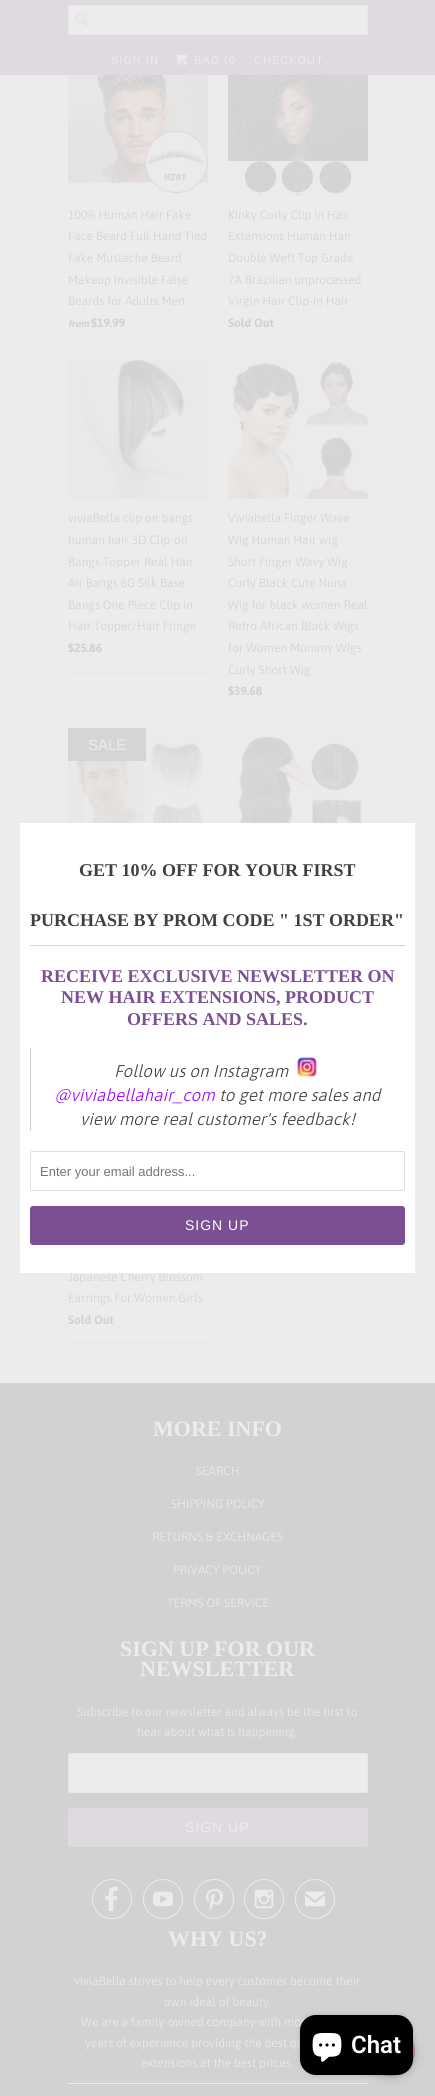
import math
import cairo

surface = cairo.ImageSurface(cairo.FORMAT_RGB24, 435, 2096)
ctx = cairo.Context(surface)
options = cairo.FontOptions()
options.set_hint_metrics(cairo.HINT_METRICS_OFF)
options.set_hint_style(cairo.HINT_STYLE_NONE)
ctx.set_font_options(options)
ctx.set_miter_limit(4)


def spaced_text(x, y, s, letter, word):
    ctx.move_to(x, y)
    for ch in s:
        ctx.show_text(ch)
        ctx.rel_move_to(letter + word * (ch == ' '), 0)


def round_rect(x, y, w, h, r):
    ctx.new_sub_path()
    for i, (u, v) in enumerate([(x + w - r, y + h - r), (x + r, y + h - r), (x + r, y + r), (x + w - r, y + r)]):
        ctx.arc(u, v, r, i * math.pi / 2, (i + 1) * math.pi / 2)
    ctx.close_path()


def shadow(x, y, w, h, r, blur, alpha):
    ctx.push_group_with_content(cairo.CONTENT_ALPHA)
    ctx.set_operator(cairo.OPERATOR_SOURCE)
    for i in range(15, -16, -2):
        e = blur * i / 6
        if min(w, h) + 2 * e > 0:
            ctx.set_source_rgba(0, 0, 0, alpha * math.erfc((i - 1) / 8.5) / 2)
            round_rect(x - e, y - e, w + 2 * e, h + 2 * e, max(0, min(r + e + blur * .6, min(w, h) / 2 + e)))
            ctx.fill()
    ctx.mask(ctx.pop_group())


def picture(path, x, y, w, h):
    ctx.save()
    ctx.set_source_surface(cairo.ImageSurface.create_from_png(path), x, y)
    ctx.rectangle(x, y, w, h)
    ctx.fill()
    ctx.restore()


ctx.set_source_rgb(0.922, 0.922, 0.922)
ctx.paint()
ctx.set_source_rgb(0.871, 0.855, 0.878)
ctx.rectangle(0, 0, 435, 75)
ctx.fill()
ctx.set_source_rgb(0.922, 0.922, 0.922)
round_rect(68, 5, 300, 30, 2)
ctx.fill()
picture("img1.png", 75, 13, 14, 14)
round_rect(68.5, 5.5, 299, 29, 1.5)
ctx.set_source_rgb(0.91, 0.91, 0.91)
ctx.set_line_width(1)
ctx.stroke()
ctx.select_font_face("Liberation Sans")
ctx.set_font_size(11)
ctx.set_source_rgb(0.922, 0.922, 0.922)
spaced_text(111, 64, "SIGN IN", 1, 0)
picture("img2.png", 175, 53, 12, 13)
spaced_text(194, 64, "BAG (0", 1, 0)
spaced_text(254, 64, "CHECKOUT", 1, 0)
ctx.set_source_rgb(0.906, 0.906, 0.906)
ctx.rectangle(68, 346, 140, 1)
ctx.fill()
picture("img3.png", 68, 75, 140, 119)
ctx.select_font_face("Asap Light")
ctx.set_font_size(12)
ctx.set_source_rgb(0.824, 0.824, 0.824)
ctx.move_to(68, 219)
ctx.show_text("100% Human Hair Fake")
ctx.move_to(68, 240)
ctx.show_text("Face Beard Full Hand Tied")
ctx.move_to(68, 262)
ctx.show_text("Fake Mustache Beard")
ctx.move_to(68, 284)
ctx.show_text("Makeup Invisible False")
ctx.move_to(68, 305)
ctx.show_text("Beards for Adults Men")
ctx.select_font_face("Asap", cairo.FONT_SLANT_ITALIC, cairo.FONT_WEIGHT_BOLD)
ctx.set_font_size(10)
ctx.move_to(68, 327)
ctx.show_text("from")
ctx.select_font_face("Asap", cairo.FONT_SLANT_NORMAL, cairo.FONT_WEIGHT_BOLD)
ctx.set_font_size(12)
ctx.move_to(91, 327)
ctx.show_text("$19.99")
ctx.set_source_rgb(0.906, 0.906, 0.906)
ctx.rectangle(228, 346, 140, 1)
ctx.fill()
picture("img4.png", 228, 75, 140, 121)
ctx.select_font_face("Asap Light")
ctx.set_source_rgb(0.824, 0.824, 0.824)
ctx.move_to(228, 219)
ctx.show_text("Kinky Curly Clip in Hair")
ctx.move_to(228, 240)
ctx.show_text("Extensions Human Hair")
ctx.move_to(228, 262)
ctx.show_text("Double Weft Top Grade")
ctx.move_to(228, 284)
ctx.show_text("7A Brazilian unprocessed")
ctx.move_to(228, 305)
ctx.show_text("Virgin Hair Clip-in Hair")
ctx.select_font_face("Asap", cairo.FONT_SLANT_NORMAL, cairo.FONT_WEIGHT_BOLD)
ctx.move_to(228, 327)
ctx.show_text("Sold Out")
ctx.set_source_rgb(0.906, 0.906, 0.906)
ctx.rectangle(68, 672, 140, 1)
ctx.fill()
picture("img5.png", 68, 359, 140, 140)
ctx.select_font_face("Asap Light")
ctx.set_source_rgb(0.824, 0.824, 0.824)
ctx.move_to(68, 522)
ctx.show_text("viviaBella clip on bangs")
ctx.move_to(68, 544)
ctx.show_text("human hair 3D Clip-on")
ctx.move_to(68, 566)
ctx.show_text("Bangs Topper Real Hair")
ctx.move_to(68, 587)
ctx.show_text("Air Bangs 6G Silk Base")
ctx.move_to(68, 609)
ctx.show_text("Bangs One Piece Clip in")
ctx.move_to(68, 630)
ctx.show_text("Hair Topper/Hair Fringe")
ctx.select_font_face("Asap", cairo.FONT_SLANT_NORMAL, cairo.FONT_WEIGHT_BOLD)
ctx.move_to(68, 652)
ctx.show_text("$25.86")
ctx.set_source_rgb(0.906, 0.906, 0.906)
ctx.rectangle(228, 715, 140, 1)
ctx.fill()
picture("img6.png", 228, 361, 140, 138)
ctx.select_font_face("Asap Light")
ctx.set_source_rgb(0.824, 0.824, 0.824)
ctx.move_to(228, 522)
ctx.show_text("Viviabella Finger Wave")
ctx.move_to(228, 544)
ctx.show_text("Wig Human Hair wig")
ctx.move_to(228, 566)
ctx.show_text("Short Finger Wavy Wig")
ctx.move_to(228, 587)
ctx.show_text("Curly Black Cute Nuna")
ctx.move_to(228, 609)
ctx.show_text("Wig for black women Real")
ctx.move_to(228, 630)
ctx.show_text("Retro African Black Wigs")
ctx.move_to(228, 652)
ctx.show_text("for Women Mommy Wigs")
ctx.move_to(228, 674)
ctx.show_text("Curly Short Wig")
ctx.select_font_face("Asap", cairo.FONT_SLANT_NORMAL, cairo.FONT_WEIGHT_BOLD)
ctx.move_to(228, 695)
ctx.show_text("$39.68")
picture("img7.png", 68, 728, 136, 95)
ctx.set_source_rgb(0.835, 0.835, 0.835)
ctx.rectangle(68, 728, 78, 33)
ctx.fill()
ctx.select_font_face("Liberation Sans")
ctx.set_font_size(15)
ctx.set_source_rgb(0.922, 0.922, 0.922)
ctx.move_to(88, 750)
ctx.show_text("SALE")
picture("img8.png", 238, 736, 124, 87)
ctx.set_source_rgb(0.906, 0.906, 0.906)
ctx.rectangle(68, 1343, 140, 1)
ctx.fill()
ctx.select_font_face("Asap Light")
ctx.set_font_size(12)
ctx.set_source_rgb(0.824, 0.824, 0.824)
ctx.move_to(68, 1281)
ctx.show_text("Japanese Cherry Blossom")
ctx.move_to(68, 1302)
ctx.show_text("Earrings For Women Girls")
ctx.select_font_face("Asap", cairo.FONT_SLANT_NORMAL, cairo.FONT_WEIGHT_BOLD)
ctx.move_to(68, 1324)
ctx.show_text("Sold Out")
ctx.set_source_rgb(1, 1, 1)
ctx.rectangle(20, 823, 395, 450)
ctx.fill()
ctx.set_source_rgb(0.827, 0.827, 0.827)
ctx.rectangle(30, 945, 375, 1)
ctx.fill()
ctx.select_font_face("Liberation Serif", cairo.FONT_SLANT_NORMAL, cairo.FONT_WEIGHT_BOLD)
ctx.set_font_size(18)
ctx.set_source_rgb(0.251, 0.251, 0.251)
ctx.move_to(79, 876)
ctx.show_text("GET 10% OFF FOR YOUR FIRST")
ctx.move_to(30, 926)
ctx.show_text("PURCHASE BY PROM CODE \" 1ST ORDER\"")
ctx.set_source_rgb(0.482, 0.314, 0.573)
ctx.move_to(41, 982)
ctx.show_text("RECEIVE EXCLUSIVE NEWSLETTER ON")
ctx.move_to(61, 1003)
ctx.show_text("NEW HAIR EXTENSIONS, PRODUCT")
ctx.move_to(127, 1025)
ctx.show_text("OFFERS AND SALES.")
ctx.set_source_rgb(0.827, 0.827, 0.827)
ctx.rectangle(30, 1048, 1, 83)
ctx.fill()
ctx.select_font_face("Asap Light", cairo.FONT_SLANT_ITALIC)
ctx.set_font_size(17)
ctx.set_source_rgb(0.251, 0.251, 0.251)
ctx.move_to(114, 1077)
ctx.show_text("Follow us on Instagram")
picture("img9.png", 297, 1057, 20, 20)
ctx.set_source_rgb(0.6, 0, 1)
ctx.move_to(54, 1101)
ctx.show_text("@viviabellahair_com")
ctx.set_source_rgb(0.251, 0.251, 0.251)
ctx.move_to(219, 1101)
ctx.show_text("to get more sales and")
ctx.move_to(80, 1125)
ctx.show_text("view more real customer's feedback!")
round_rect(30.5, 1151.5, 374, 39, 1.5)
ctx.set_source_rgb(0.875, 0.875, 0.875)
ctx.stroke()
ctx.select_font_face("Liberation Sans")
ctx.set_font_size(13)
ctx.set_source_rgb(0.459, 0.459, 0.459)
ctx.move_to(40, 1176)
ctx.show_text("Enter your email address...")
ctx.set_source_rgb(0.482, 0.314, 0.573)
round_rect(30.5, 1206.5, 374, 38, 2.5)
ctx.fill_preserve()
ctx.stroke()
ctx.set_font_size(14)
ctx.set_source_rgb(1, 1, 1)
spaced_text(185, 1230, "SIGN UP", 1, 0)
ctx.set_source_rgb(0.824, 0.824, 0.824)
ctx.rectangle(0, 1384, 435, 712)
ctx.fill()
ctx.set_source_rgb(0.835, 0.835, 0.835)
ctx.rectangle(0, 1383, 435, 1)
ctx.fill()
ctx.select_font_face("Liberation Serif", cairo.FONT_SLANT_NORMAL, cairo.FONT_WEIGHT_BOLD)
ctx.set_font_size(22)
ctx.set_source_rgb(0.922, 0.922, 0.922)
ctx.move_to(153, 1436)
ctx.show_text("MORE INFO")
ctx.select_font_face("Asap Light")
ctx.set_font_size(12)
ctx.move_to(196, 1475)
ctx.show_text("SEARCH")
ctx.move_to(171, 1508)
ctx.show_text("SHIPPING POLICY")
ctx.move_to(152, 1541)
ctx.show_text("RETURNS & EXCHNAGES")
ctx.move_to(173, 1574)
ctx.show_text("PRIVACY POLICY")
ctx.move_to(167, 1607)
ctx.show_text("TERMS OF SERVICE")
ctx.select_font_face("Liberation Serif", cairo.FONT_SLANT_NORMAL, cairo.FONT_WEIGHT_BOLD)
ctx.set_font_size(22)
ctx.move_to(120, 1656)
ctx.show_text("SIGN UP FOR OUR")
ctx.move_to(140, 1676)
ctx.show_text("NEWSLETTER")
ctx.select_font_face("Asap Light")
ctx.set_font_size(12)
ctx.move_to(77, 1716)
ctx.show_text("Subscribe to our newsletter and always be the first to")
ctx.move_to(137, 1736)
ctx.show_text("hear about what is happening.")
round_rect(68.5, 1753.5, 299, 39, 1.5)
ctx.fill_preserve()
ctx.set_source_rgb(0.91, 0.91, 0.91)
ctx.stroke()
ctx.set_source_rgb(0.871, 0.855, 0.878)
round_rect(68.5, 1808.5, 299, 38, 2.5)
ctx.fill_preserve()
ctx.stroke()
ctx.select_font_face("Liberation Sans")
ctx.set_font_size(14)
ctx.set_source_rgb(0.922, 0.922, 0.922)
spaced_text(185, 1832, "SIGN UP", 1, 0)
picture("img10.png", 92, 1879, 40, 40)
picture("img11.png", 143, 1879, 40, 40)
picture("img12.png", 194, 1879, 40, 40)
picture("img13.png", 244, 1879, 40, 40)
ctx.select_font_face("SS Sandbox")
ctx.set_font_size(40)
ctx.move_to(295, 1919)
ctx.show_text("✉")
ctx.select_font_face("Liberation Serif", cairo.FONT_SLANT_NORMAL, cairo.FONT_WEIGHT_BOLD)
ctx.set_font_size(22)
ctx.move_to(168, 1946)
ctx.show_text("WHY US?")
ctx.select_font_face("Asap Light")
ctx.set_font_size(12)
ctx.move_to(74, 1985)
ctx.show_text("viviaBella strives to help every customer become their")
ctx.move_to(164, 2006)
ctx.show_text("own ideal of beauty.")
ctx.move_to(81, 2026)
ctx.show_text("We are a family-owned company with mor")
ctx.move_to(85, 2047)
ctx.show_text("years of experience providing the best qu")
ctx.move_to(141, 2067)
ctx.show_text("extensions at the best prices.")
ctx.rectangle(68, 2083, 300, 1)
ctx.fill()
ctx.set_source_rgb(0.502, 0.502, 0.502)
shadow(365, 2028, 50, 50, 25, 5.5, 0.4)
ctx.set_source_rgb(0.761, 0.482, 0.627)
ctx.arc(390, 2051, 25, 0, 2 * math.pi)
ctx.fill()
ctx.set_source_rgb(0, 0, 0)
shadow(300, 2015, 113, 60, 16, 2.5, 0.15)
ctx.set_source_rgb(0, 0, 0)
round_rect(300, 2015, 113, 60, 16)
ctx.fill()
picture("img14.png", 312, 2033, 30, 29)
ctx.select_font_face("Roboto SemiBold")
ctx.set_font_size(24)
ctx.set_source_rgb(1, 1, 1)
ctx.move_to(351, 2053)
ctx.show_text("Chat")
surface.write_to_png("page.png")
